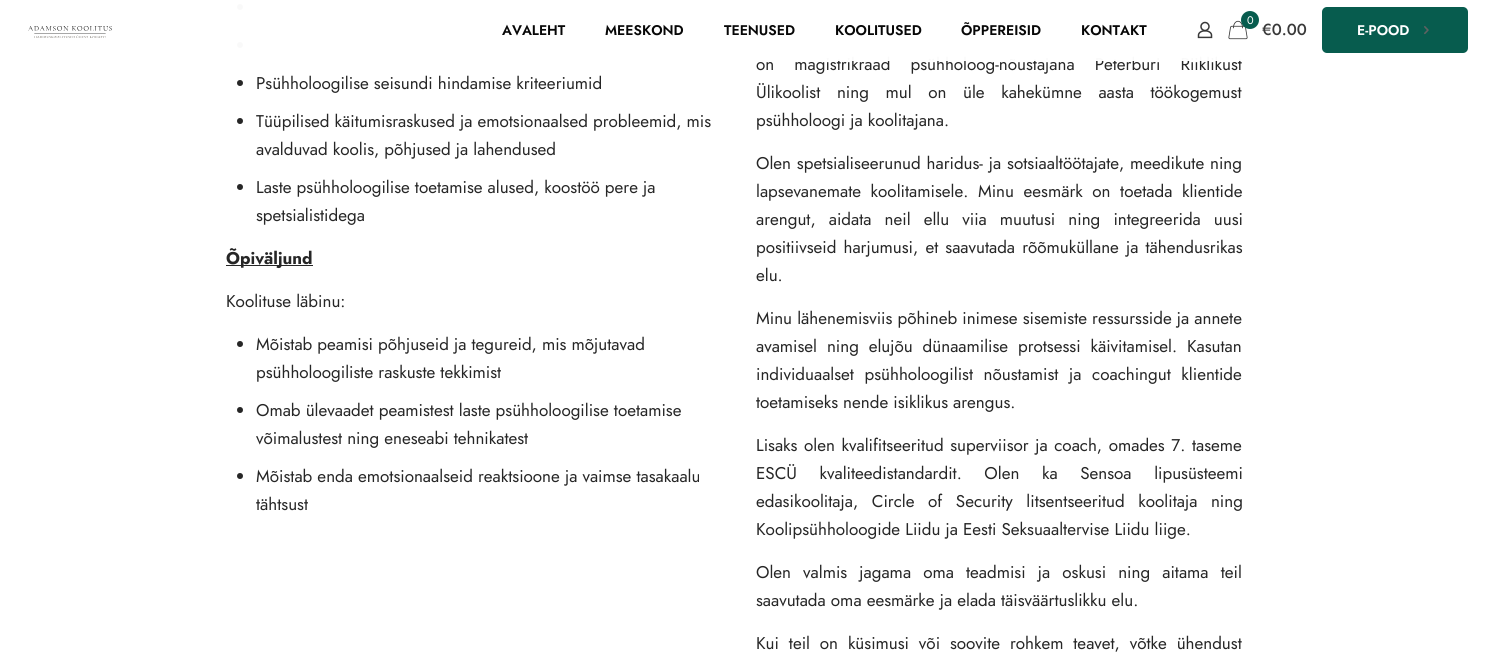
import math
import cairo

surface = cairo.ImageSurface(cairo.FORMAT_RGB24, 1488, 662)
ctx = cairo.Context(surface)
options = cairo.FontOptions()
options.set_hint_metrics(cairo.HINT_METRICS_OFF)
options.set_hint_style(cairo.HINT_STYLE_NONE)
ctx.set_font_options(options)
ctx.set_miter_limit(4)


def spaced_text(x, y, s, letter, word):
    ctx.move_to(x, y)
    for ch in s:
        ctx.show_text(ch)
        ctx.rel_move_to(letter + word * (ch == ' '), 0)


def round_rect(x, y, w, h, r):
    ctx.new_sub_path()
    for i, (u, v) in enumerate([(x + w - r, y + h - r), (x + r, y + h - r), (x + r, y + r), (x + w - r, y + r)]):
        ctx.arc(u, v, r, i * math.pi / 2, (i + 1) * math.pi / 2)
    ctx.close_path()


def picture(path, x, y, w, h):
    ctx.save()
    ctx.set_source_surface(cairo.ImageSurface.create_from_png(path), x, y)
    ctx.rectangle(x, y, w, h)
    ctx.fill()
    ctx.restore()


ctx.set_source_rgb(1, 1, 1)
ctx.paint()
ctx.set_source_rgb(0.149, 0.149, 0.149)
ctx.arc(240, 7, 3, 0, 2 * math.pi)
ctx.fill()
ctx.arc(240, 45, 3, 0, 2 * math.pi)
ctx.fill()
ctx.select_font_face("Jost")
ctx.set_font_size(17)
spaced_text(756, 70, "on magistrikraad psühholoog-nõustajana Peterburi Riiklikust", 0, 15)
ctx.set_source_rgba(1, 1, 1, 0.97)
ctx.rectangle(237, 4, 1004, 57)
ctx.fill()
picture("img1.png", 28, 26, 84, 12)
ctx.select_font_face("Jost SemiBold")
ctx.set_font_size(14)
ctx.set_source_rgb(0.031, 0.031, 0.031)
ctx.move_to(502, 35)
ctx.show_text("AVALEHT")
ctx.move_to(605, 35)
ctx.show_text("MEESKOND")
ctx.move_to(724, 35)
ctx.show_text("TEENUSED")
ctx.move_to(835, 35)
ctx.show_text("KOOLITUSED")
ctx.move_to(961, 35)
ctx.show_text("ÕPPEREISID")
ctx.move_to(1081, 35)
ctx.show_text("KONTAKT")
picture("img2.png", 1197, 21, 16, 18)
picture("img3.png", 1228, 20, 20, 20)
ctx.set_source_rgb(0.031, 0.361, 0.306)
ctx.arc(1250, 20, 9, 0, 2 * math.pi)
ctx.fill()
ctx.select_font_face("Jost")
ctx.set_font_size(11)
ctx.set_source_rgb(1, 1, 1)
ctx.move_to(1247, 24)
ctx.show_text("0")
ctx.select_font_face("Jost Medium")
ctx.set_font_size(16)
ctx.set_source_rgb(0.224, 0.224, 0.224)
ctx.move_to(1262, 35)
ctx.show_text("€0.00")
ctx.set_source_rgb(0.031, 0.361, 0.306)
round_rect(1322, 7, 146, 46, 5)
ctx.fill()
ctx.select_font_face("Jost SemiBold")
ctx.set_font_size(14)
ctx.set_source_rgb(1, 1, 1)
ctx.move_to(1357, 35)
ctx.show_text("E-POOD")
picture("img4.png", 1424, 26, 5, 9)
ctx.set_source_rgb(0.149, 0.149, 0.149)
ctx.arc(240, 83, 3, 0, 2 * math.pi)
ctx.fill()
ctx.select_font_face("Jost")
ctx.set_font_size(17)
ctx.move_to(256, 89)
ctx.show_text("Psühholoogilise seisundi hindamise kriteeriumid")
ctx.new_path()
ctx.arc(240, 121, 3, 0, 2 * math.pi)
ctx.fill()
ctx.move_to(256, 127)
ctx.show_text("Tüüpilised käitumisraskused ja emotsionaalsed probleemid, mis")
ctx.move_to(256, 155)
ctx.show_text("avalduvad koolis, põhjused ja lahendused")
ctx.new_path()
ctx.arc(240, 187, 3, 0, 2 * math.pi)
ctx.fill()
ctx.move_to(256, 193)
ctx.show_text("Laste psühholoogilise toetamise alused, koostöö pere ja")
ctx.move_to(256, 221)
ctx.show_text("spetsialistidega")
ctx.rectangle(226, 265, 87, 1)
ctx.fill()
ctx.select_font_face("Jost", cairo.FONT_SLANT_NORMAL, cairo.FONT_WEIGHT_BOLD)
ctx.move_to(226, 264)
ctx.show_text("Õpiväljund")
ctx.select_font_face("Jost")
ctx.move_to(226, 307)
ctx.show_text("Koolituse läbinu:")
ctx.new_path()
ctx.arc(240, 344, 3, 0, 2 * math.pi)
ctx.fill()
ctx.move_to(256, 350)
ctx.show_text("Mõistab peamisi põhjuseid ja tegureid, mis mõjutavad")
ctx.move_to(256, 378)
ctx.show_text("psühholoogiliste raskuste tekkimist")
ctx.new_path()
ctx.arc(240, 410, 3, 0, 2 * math.pi)
ctx.fill()
ctx.move_to(256, 416)
ctx.show_text("Omab ülevaadet peamistest laste psühholoogilise toetamise")
ctx.move_to(256, 444)
ctx.show_text("võimalustest ning eneseabi tehnikatest")
ctx.new_path()
ctx.arc(240, 476, 3, 0, 2 * math.pi)
ctx.fill()
ctx.move_to(256, 482)
ctx.show_text("Mõistab enda emotsionaalseid reaktsioone ja vaimse tasakaalu")
ctx.move_to(256, 510)
ctx.show_text("tähtsust")
spaced_text(756, 98, "Ülikoolist ning mul on üle kahekümne aasta töökogemust", 0, 11.5)
ctx.move_to(756, 126)
ctx.show_text("psühholoogi ja koolitajana.")
spaced_text(756, 169, "Olen spetsialiseerunud haridus- ja sotsiaaltöötajate, meedikute ning", 0, 0.75)
spaced_text(756, 197, "lapsevanemate koolitamisele. Minu eesmärk on toetada klientide", 0, 4.5)
spaced_text(756, 225, "arengut, aidata neil ellu viia muutusi ning integreerida uusi", 0, 8)
spaced_text(756, 253, "positiivseid harjumusi, et saavutada rõõmuküllane ja tähendusrikas", 0, 2)
ctx.move_to(756, 281)
ctx.show_text("elu.")
ctx.move_to(756, 324)
ctx.show_text("Minu lähenemisviis põhineb inimese sisemiste ressursside ja annete")
spaced_text(756, 352, "avamisel ning elujõu dünaamilise protsessi käivitamisel. Kasutan", 0, 4.75)
spaced_text(756, 380, "individuaalset psühholoogilist nõustamist ja coachingut klientide", 0, 5.5)
ctx.move_to(756, 408)
ctx.show_text("toetamiseks nende isiklikus arengus.")
spaced_text(756, 451, "Lisaks olen kvalifitseeritud superviisor ja coach, omades 7. taseme", 0, 1.5)
spaced_text(756, 479, "ESCÜ kvaliteedistandardit. Olen ka Sensoa lipusüsteemi", 0, 17.5)
spaced_text(756, 507, "edasikoolitaja, Circle of Security litsentseeritud koolitaja ning", 0, 8.5)
ctx.move_to(756, 535)
ctx.show_text("Koolipsühholoogide Liidu ja Eesti Seksuaaltervise Liidu liige.")
spaced_text(756, 578, "Olen valmis jagama oma teadmisi ja oskusi ning aitama teil", 0, 7)
ctx.move_to(756, 606)
ctx.show_text("saavutada oma eesmärke ja elada täisväärtuslikku elu.")
spaced_text(756, 649, "Kui teil on küsimusi või soovite rohkem teavet, võtke ühendust", 0, 4.75)
surface.write_to_png("page.png")
